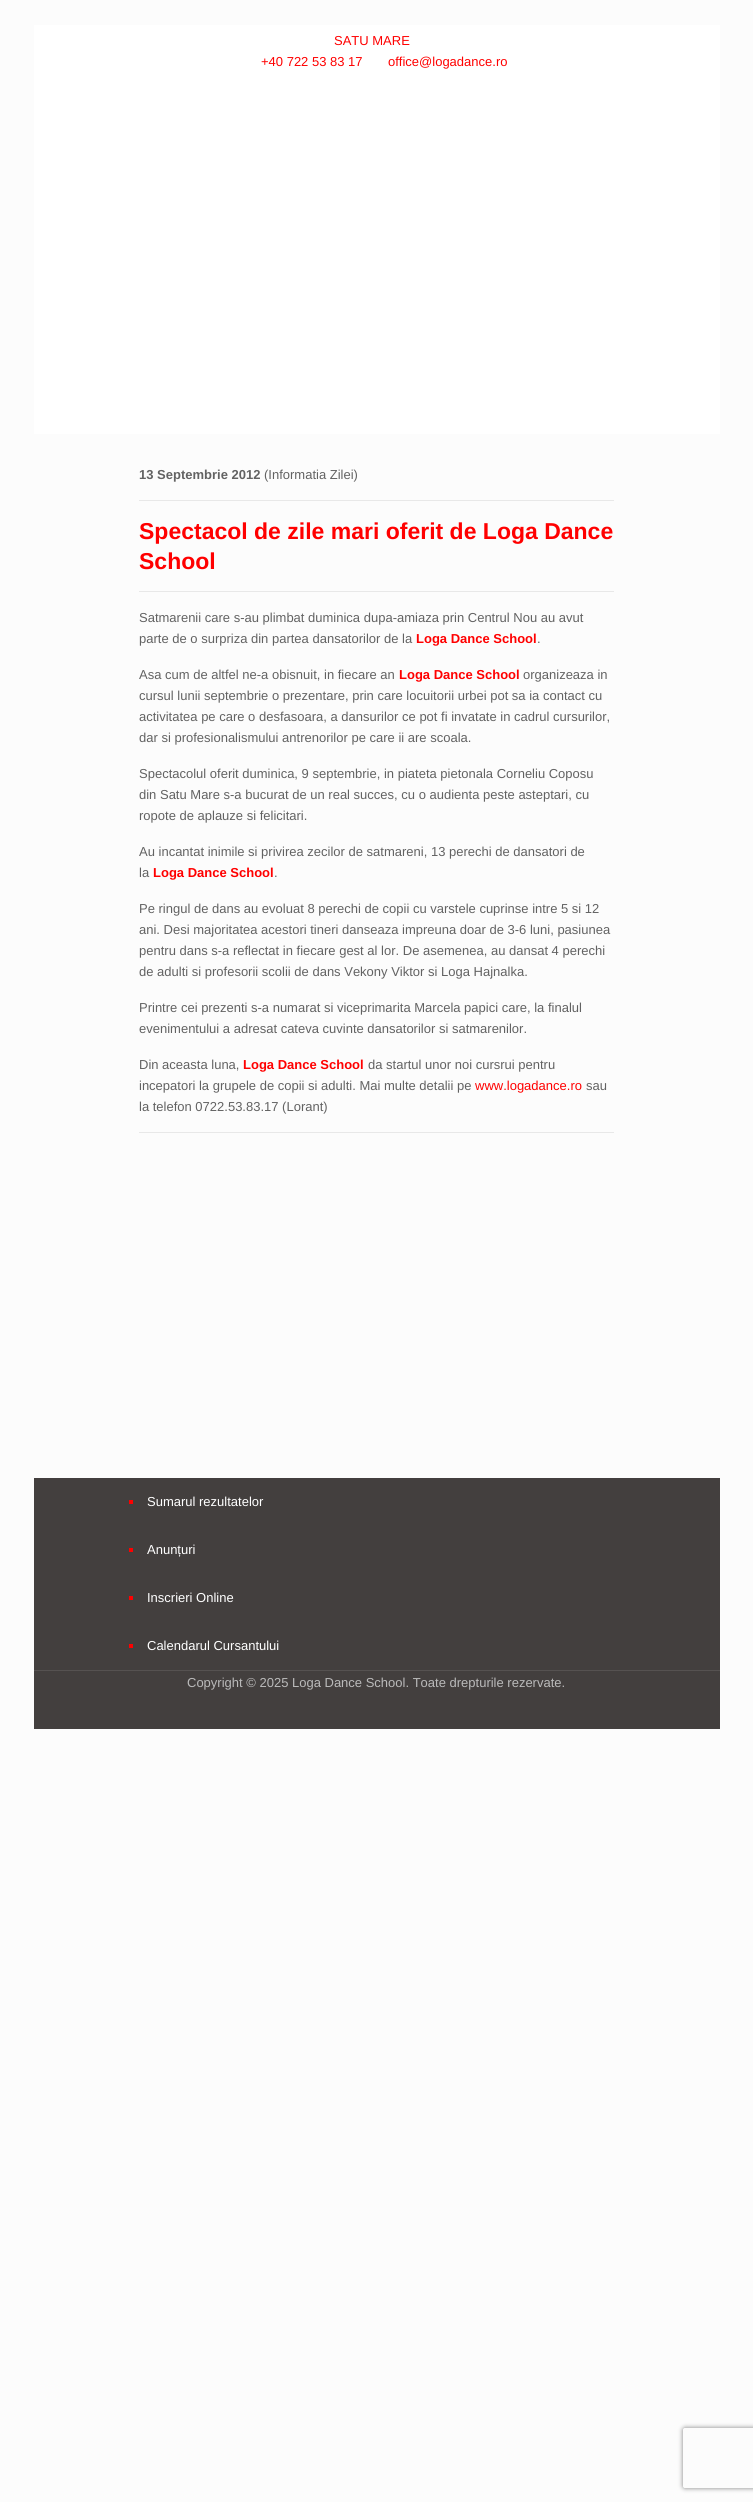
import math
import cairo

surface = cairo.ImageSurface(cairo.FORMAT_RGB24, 753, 2502)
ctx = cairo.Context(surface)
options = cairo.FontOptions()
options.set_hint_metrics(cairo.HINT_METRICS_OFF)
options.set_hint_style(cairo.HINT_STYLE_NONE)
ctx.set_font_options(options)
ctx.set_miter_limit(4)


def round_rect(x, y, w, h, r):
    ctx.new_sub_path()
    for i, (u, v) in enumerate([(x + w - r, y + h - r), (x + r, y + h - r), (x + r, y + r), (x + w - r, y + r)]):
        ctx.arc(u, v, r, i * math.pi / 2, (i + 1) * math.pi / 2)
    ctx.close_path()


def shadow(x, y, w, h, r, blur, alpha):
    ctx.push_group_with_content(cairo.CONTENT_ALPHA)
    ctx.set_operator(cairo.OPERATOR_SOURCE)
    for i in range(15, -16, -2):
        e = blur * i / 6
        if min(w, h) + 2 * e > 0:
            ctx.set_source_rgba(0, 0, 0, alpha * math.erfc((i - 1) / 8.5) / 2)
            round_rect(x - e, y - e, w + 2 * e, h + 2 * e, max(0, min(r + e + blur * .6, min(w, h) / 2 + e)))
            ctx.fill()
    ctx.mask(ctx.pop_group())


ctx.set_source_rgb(0.988, 0.988, 0.988)
ctx.paint()
ctx.set_source_rgb(1, 1, 1)
ctx.rectangle(34, 25, 686, 409)
ctx.fill()
ctx.select_font_face("Liberation Sans")
ctx.set_font_size(13)
ctx.set_source_rgb(1, 0, 0)
ctx.move_to(334, 45)
ctx.show_text("SATU MARE")
ctx.move_to(261, 66)
ctx.show_text("+40 722 53 83 17")
ctx.move_to(388, 66)
ctx.show_text("office@logadance.ro")
ctx.select_font_face("Liberation Sans", cairo.FONT_SLANT_NORMAL, cairo.FONT_WEIGHT_BOLD)
ctx.set_source_rgb(0.384, 0.384, 0.384)
ctx.move_to(139, 479)
ctx.show_text("13 Septembrie 2012")
ctx.select_font_face("Liberation Sans")
ctx.move_to(264, 479)
ctx.show_text("(Informatia Zilei)")
ctx.set_source_rgb(0.91, 0.91, 0.91)
ctx.rectangle(139, 500, 475, 1)
ctx.fill()
ctx.select_font_face("Liberation Sans", cairo.FONT_SLANT_NORMAL, cairo.FONT_WEIGHT_BOLD)
ctx.set_font_size(23)
ctx.set_source_rgb(1, 0, 0)
ctx.move_to(139, 539)
ctx.show_text("Spectacol de zile mari oferit de Loga Dance")
ctx.move_to(139, 569)
ctx.show_text("School")
ctx.set_source_rgb(0.91, 0.91, 0.91)
ctx.rectangle(139, 591, 475, 1)
ctx.fill()
ctx.select_font_face("Liberation Sans")
ctx.set_font_size(13)
ctx.set_source_rgb(0.384, 0.384, 0.384)
ctx.move_to(139, 622)
ctx.show_text("Satmarenii care s-au plimbat duminica dupa-amiaza prin Centrul Nou au avut")
ctx.move_to(139, 643)
ctx.show_text("parte de o surpriza din partea dansatorilor de la")
ctx.select_font_face("Liberation Sans", cairo.FONT_SLANT_NORMAL, cairo.FONT_WEIGHT_BOLD)
ctx.set_source_rgb(1, 0, 0)
ctx.move_to(416, 643)
ctx.show_text("Loga Dance School")
ctx.select_font_face("Liberation Sans")
ctx.set_source_rgb(0.384, 0.384, 0.384)
ctx.move_to(537, 643)
ctx.show_text(".")
ctx.move_to(139, 679)
ctx.show_text("Asa cum de altfel ne-a obisnuit, in fiecare an")
ctx.select_font_face("Liberation Sans", cairo.FONT_SLANT_NORMAL, cairo.FONT_WEIGHT_BOLD)
ctx.set_source_rgb(1, 0, 0)
ctx.move_to(399, 679)
ctx.show_text("Loga Dance School")
ctx.select_font_face("Liberation Sans")
ctx.set_source_rgb(0.384, 0.384, 0.384)
ctx.move_to(523, 679)
ctx.show_text("organizeaza in")
ctx.move_to(139, 700)
ctx.show_text("cursul lunii septembrie o prezentare, prin care locuitorii urbei pot sa ia contact cu")
ctx.move_to(139, 721)
ctx.show_text("activitatea pe care o desfasoara, a dansurilor ce pot fi invatate in cadrul cursurilor,")
ctx.move_to(139, 742)
ctx.show_text("dar si profesionalismului antrenorilor pe care ii are scoala.")
ctx.move_to(139, 778)
ctx.show_text("Spectacolul oferit duminica, 9 septembrie, in piateta pietonala Corneliu Coposu")
ctx.move_to(139, 799)
ctx.show_text("din Satu Mare s-a bucurat de un real succes, cu o audienta peste asteptari, cu")
ctx.move_to(139, 820)
ctx.show_text("ropote de aplauze si felicitari.")
ctx.move_to(139, 856)
ctx.show_text("Au incantat inimile si privirea zecilor de satmareni, 13 perechi de dansatori de")
ctx.move_to(139, 877)
ctx.show_text("la")
ctx.select_font_face("Liberation Sans", cairo.FONT_SLANT_NORMAL, cairo.FONT_WEIGHT_BOLD)
ctx.set_source_rgb(1, 0, 0)
ctx.move_to(153, 877)
ctx.show_text("Loga Dance School")
ctx.select_font_face("Liberation Sans")
ctx.set_source_rgb(0.384, 0.384, 0.384)
ctx.move_to(274, 877)
ctx.show_text(".")
ctx.move_to(139, 913)
ctx.show_text("Pe ringul de dans au evoluat 8 perechi de copii cu varstele cuprinse intre 5 si 12")
ctx.move_to(139, 934)
ctx.show_text("ani. Desi majoritatea acestori tineri danseaza impreuna doar de 3-6 luni, pasiunea")
ctx.move_to(139, 955)
ctx.show_text("pentru dans s-a reflectat in fiecare gest al lor. De asemenea, au dansat 4 perechi")
ctx.move_to(139, 976)
ctx.show_text("de adulti si profesorii scolii de dans Vekony Viktor si Loga Hajnalka.")
ctx.move_to(139, 1012)
ctx.show_text("Printre cei prezenti s-a numarat si viceprimarita Marcela papici care, la finalul")
ctx.move_to(139, 1033)
ctx.show_text("evenimentului a adresat cateva cuvinte dansatorilor si satmarenilor.")
ctx.move_to(139, 1069)
ctx.show_text("Din aceasta luna,")
ctx.select_font_face("Liberation Sans", cairo.FONT_SLANT_NORMAL, cairo.FONT_WEIGHT_BOLD)
ctx.set_source_rgb(1, 0, 0)
ctx.move_to(243, 1069)
ctx.show_text("Loga Dance School")
ctx.select_font_face("Liberation Sans")
ctx.set_source_rgb(0.384, 0.384, 0.384)
ctx.move_to(368, 1069)
ctx.show_text("da startul unor noi cursrui pentru")
ctx.move_to(139, 1090)
ctx.show_text("incepatori la grupele de copii si adulti. Mai multe detalii pe")
ctx.set_source_rgb(1, 0, 0)
ctx.move_to(475, 1090)
ctx.show_text("www.logadance.ro")
ctx.set_source_rgb(0.384, 0.384, 0.384)
ctx.move_to(586, 1090)
ctx.show_text("sau")
ctx.move_to(139, 1111)
ctx.show_text("la telefon 0722.53.83.17 (Lorant)")
ctx.set_source_rgb(0.91, 0.91, 0.91)
ctx.rectangle(139, 1132, 475, 1)
ctx.fill()
ctx.set_source_rgb(0.263, 0.247, 0.243)
ctx.rectangle(34, 1478, 686, 192)
ctx.fill()
ctx.set_source_rgb(1, 0, 0)
ctx.rectangle(129, 1500, 4, 4)
ctx.fill()
ctx.set_source_rgb(1, 1, 1)
ctx.move_to(147, 1506)
ctx.show_text("Sumarul rezultatelor")
ctx.set_source_rgb(1, 0, 0)
ctx.rectangle(129, 1548, 4, 4)
ctx.fill()
ctx.set_source_rgb(1, 1, 1)
ctx.move_to(147, 1554)
ctx.show_text("Anunțuri")
ctx.set_source_rgb(1, 0, 0)
ctx.rectangle(129, 1596, 4, 4)
ctx.fill()
ctx.set_source_rgb(1, 1, 1)
ctx.move_to(147, 1602)
ctx.show_text("Inscrieri Online")
ctx.set_source_rgb(1, 0, 0)
ctx.rectangle(129, 1644, 4, 4)
ctx.fill()
ctx.set_source_rgb(1, 1, 1)
ctx.move_to(147, 1650)
ctx.show_text("Calendarul Cursantului")
ctx.set_source_rgb(0.263, 0.247, 0.243)
ctx.rectangle(34, 1671, 686, 58)
ctx.fill()
ctx.set_source_rgb(0.337, 0.322, 0.318)
ctx.rectangle(34, 1670, 686, 1)
ctx.fill()
ctx.set_source_rgb(0.729, 0.729, 0.729)
ctx.move_to(187, 1687)
ctx.show_text("Copyright © 2025 Loga Dance School. Toate drepturile rezervate.")
ctx.save()
ctx.set_fill_rule(cairo.FILL_RULE_EVEN_ODD)
ctx.new_path()
ctx.move_to(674, 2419)
ctx.line_to(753, 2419)
ctx.line_to(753, 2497)
ctx.line_to(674, 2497)
ctx.close_path()
ctx.move_to(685, 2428)
ctx.line_to(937, 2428)
ctx.curve_to(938, 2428, 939, 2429, 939, 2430)
ctx.line_to(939, 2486)
ctx.curve_to(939, 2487, 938, 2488, 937, 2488)
ctx.line_to(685, 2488)
ctx.curve_to(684, 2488, 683, 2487, 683, 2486)
ctx.line_to(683, 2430)
ctx.curve_to(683, 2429, 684, 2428, 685, 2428)
ctx.close_path()
ctx.clip()
ctx.set_source_rgb(0.502, 0.502, 0.502)
shadow(683, 2428, 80, 60, 2, 2.5, 1)
ctx.restore()
surface.write_to_png("page.png")
